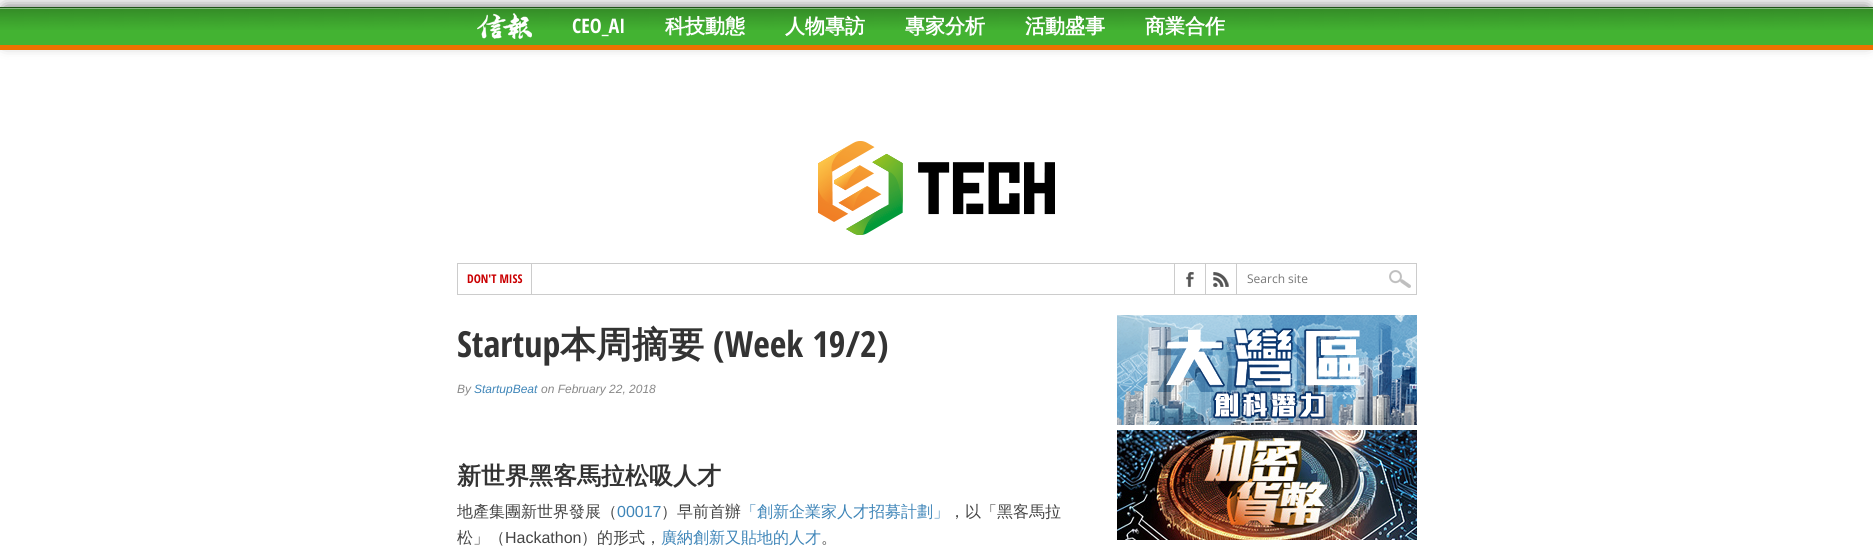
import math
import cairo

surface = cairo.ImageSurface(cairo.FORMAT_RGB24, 1873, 548)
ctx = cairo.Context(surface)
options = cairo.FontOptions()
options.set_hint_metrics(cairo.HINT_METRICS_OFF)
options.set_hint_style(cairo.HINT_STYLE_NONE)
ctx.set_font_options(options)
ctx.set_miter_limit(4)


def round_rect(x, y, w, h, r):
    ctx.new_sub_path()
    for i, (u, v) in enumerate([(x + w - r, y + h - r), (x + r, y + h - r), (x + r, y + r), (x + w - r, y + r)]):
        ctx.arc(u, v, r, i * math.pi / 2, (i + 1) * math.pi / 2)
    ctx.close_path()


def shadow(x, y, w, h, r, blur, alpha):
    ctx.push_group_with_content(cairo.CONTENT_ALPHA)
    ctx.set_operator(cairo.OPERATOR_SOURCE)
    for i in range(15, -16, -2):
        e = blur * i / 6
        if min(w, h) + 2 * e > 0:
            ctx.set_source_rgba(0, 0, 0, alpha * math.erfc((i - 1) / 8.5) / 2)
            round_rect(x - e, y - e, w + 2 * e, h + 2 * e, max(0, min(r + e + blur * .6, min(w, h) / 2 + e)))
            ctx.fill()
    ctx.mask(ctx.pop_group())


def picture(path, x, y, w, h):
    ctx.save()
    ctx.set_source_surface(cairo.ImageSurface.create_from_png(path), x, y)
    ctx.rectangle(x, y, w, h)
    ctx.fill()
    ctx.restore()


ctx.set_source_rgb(1, 1, 1)
ctx.paint()
ctx.set_source_rgb(0.333, 0.333, 0.333)
shadow(5, 8, 1863, 33, 0, 7.5, 1)
ctx.set_source_rgb(0.263, 0.702, 0.196)
ctx.rectangle(0, 7, 1873, 38)
ctx.fill()
picture("img1.png", 0, 7, 1873, 23)
ctx.set_source_rgb(0.929, 0.451, 0)
ctx.rectangle(0, 45, 1873, 5)
ctx.fill()
picture("img2.png", 477, 13, 55, 26)
ctx.select_font_face("Open Sans Condensed", cairo.FONT_SLANT_NORMAL, cairo.FONT_WEIGHT_BOLD)
ctx.set_font_size(20)
ctx.set_source_rgb(1, 1, 1)
ctx.move_to(572, 33)
ctx.show_text("CEO_AI")
ctx.select_font_face("WenQuanYi Zen Hei", cairo.FONT_SLANT_NORMAL, cairo.FONT_WEIGHT_BOLD)
ctx.move_to(665, 33)
ctx.show_text("科技動態")
ctx.move_to(785, 33)
ctx.show_text("人物專訪")
ctx.move_to(905, 33)
ctx.show_text("專家分析")
ctx.move_to(1025, 33)
ctx.show_text("活動盛事")
ctx.move_to(1145, 33)
ctx.show_text("商業合作")
picture("img3.png", 818, 141, 237, 94)
ctx.rectangle(457.5, 263.5, 959, 31)
ctx.set_source_rgb(0.8, 0.8, 0.8)
ctx.set_line_width(1)
ctx.stroke()
ctx.rectangle(531, 264, 1, 30)
ctx.fill()
ctx.select_font_face("Open Sans Condensed", cairo.FONT_SLANT_NORMAL, cairo.FONT_WEIGHT_BOLD)
ctx.set_font_size(12)
ctx.set_source_rgb(0.792, 0, 0.008)
ctx.move_to(467, 283)
ctx.show_text("DON'T MISS")
ctx.set_source_rgb(0.8, 0.8, 0.8)
ctx.rectangle(1174, 264, 1, 30)
ctx.fill()
picture("img4.png", 1186, 272, 8, 15)
ctx.rectangle(1205, 264, 1, 30)
ctx.fill()
picture("img5.png", 1213, 272, 16, 15)
ctx.rectangle(1236, 264, 1, 30)
ctx.fill()
picture("img6.png", 1389, 270, 22, 18)
ctx.select_font_face("Open Sans")
ctx.set_source_rgb(0.467, 0.467, 0.467)
ctx.move_to(1247, 283)
ctx.show_text("Search site")
ctx.select_font_face("Open Sans Condensed", cairo.FONT_SLANT_NORMAL, cairo.FONT_WEIGHT_BOLD)
ctx.set_font_size(36)
ctx.set_source_rgb(0.2, 0.2, 0.2)
ctx.move_to(457, 357)
ctx.show_text("Startup")
ctx.select_font_face("WenQuanYi Zen Hei", cairo.FONT_SLANT_NORMAL, cairo.FONT_WEIGHT_BOLD)
ctx.move_to(560, 357)
ctx.show_text("本周摘要")
ctx.select_font_face("Open Sans Condensed", cairo.FONT_SLANT_NORMAL, cairo.FONT_WEIGHT_BOLD)
ctx.move_to(713, 357)
ctx.show_text("(Week 19/2)")
ctx.select_font_face("Liberation Sans", cairo.FONT_SLANT_ITALIC)
ctx.set_font_size(12)
ctx.set_source_rgb(0.533, 0.533, 0.533)
ctx.move_to(457, 393)
ctx.show_text("By")
ctx.set_source_rgb(0.243, 0.522, 0.722)
ctx.move_to(474, 393)
ctx.show_text("StartupBeat")
ctx.set_source_rgb(0.533, 0.533, 0.533)
ctx.move_to(541, 393)
ctx.show_text("on February 22, 2018")
ctx.select_font_face("WenQuanYi Zen Hei", cairo.FONT_SLANT_NORMAL, cairo.FONT_WEIGHT_BOLD)
ctx.set_font_size(24)
ctx.set_source_rgb(0.2, 0.2, 0.2)
ctx.move_to(457, 484)
ctx.show_text("新世界黑客馬拉松吸人才")
ctx.select_font_face("WenQuanYi Zen Hei Medium")
ctx.set_font_size(16)
ctx.set_source_rgb(0.267, 0.267, 0.267)
ctx.move_to(457, 517)
ctx.show_text("地產集團新世界發展（")
ctx.select_font_face("Liberation Sans")
ctx.set_source_rgb(0.243, 0.522, 0.722)
ctx.move_to(617, 517)
ctx.show_text("00017")
ctx.select_font_face("WenQuanYi Zen Hei Medium")
ctx.set_source_rgb(0.267, 0.267, 0.267)
ctx.move_to(661, 517)
ctx.show_text("）早前首辦")
ctx.set_source_rgb(0.243, 0.522, 0.722)
ctx.move_to(741, 517)
ctx.show_text("「創新企業家人才招募計劃」")
ctx.set_source_rgb(0.267, 0.267, 0.267)
ctx.move_to(949, 517)
ctx.show_text("，以「黑客馬拉")
ctx.move_to(457, 543)
ctx.show_text("松」（")
ctx.select_font_face("Liberation Sans")
ctx.move_to(505, 543)
ctx.show_text("Hackathon")
ctx.select_font_face("WenQuanYi Zen Hei Medium")
ctx.move_to(581, 543)
ctx.show_text("）的形式，")
ctx.set_source_rgb(0.243, 0.522, 0.722)
ctx.move_to(661, 543)
ctx.show_text("廣納創新又貼地的人才")
ctx.set_source_rgb(0.267, 0.267, 0.267)
ctx.move_to(821, 543)
ctx.show_text("。")
picture("img7.png", 1117, 315, 300, 110)
picture("img8.png", 1117, 430, 300, 110)
surface.write_to_png("page.png")
